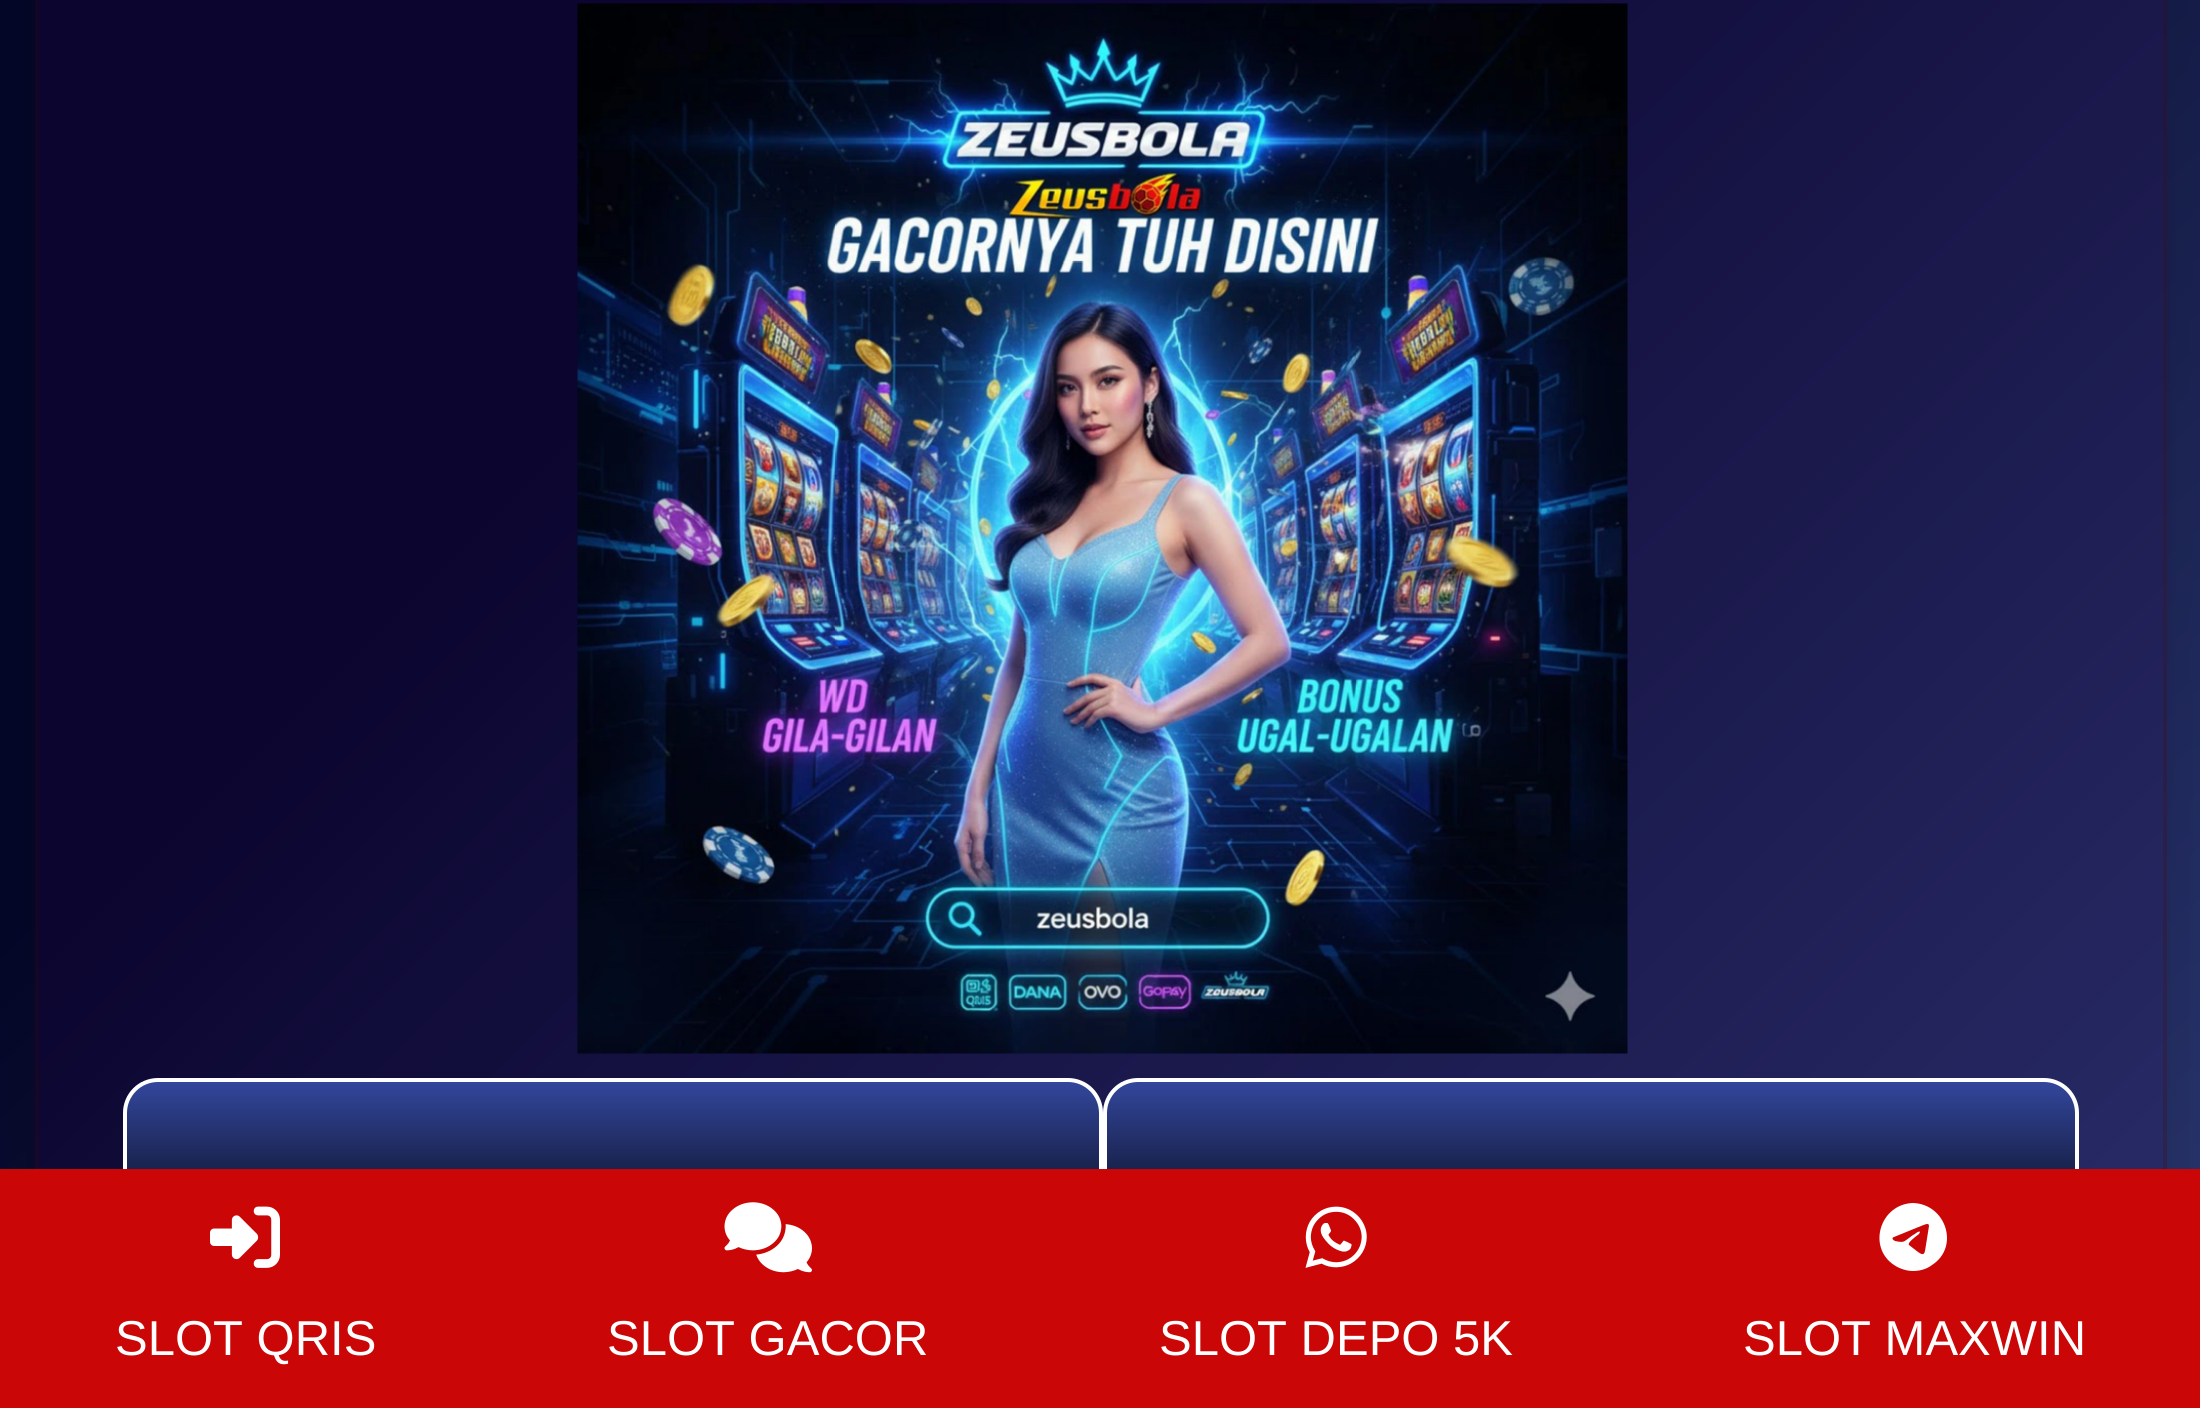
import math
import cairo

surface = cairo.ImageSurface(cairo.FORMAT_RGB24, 2200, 1408)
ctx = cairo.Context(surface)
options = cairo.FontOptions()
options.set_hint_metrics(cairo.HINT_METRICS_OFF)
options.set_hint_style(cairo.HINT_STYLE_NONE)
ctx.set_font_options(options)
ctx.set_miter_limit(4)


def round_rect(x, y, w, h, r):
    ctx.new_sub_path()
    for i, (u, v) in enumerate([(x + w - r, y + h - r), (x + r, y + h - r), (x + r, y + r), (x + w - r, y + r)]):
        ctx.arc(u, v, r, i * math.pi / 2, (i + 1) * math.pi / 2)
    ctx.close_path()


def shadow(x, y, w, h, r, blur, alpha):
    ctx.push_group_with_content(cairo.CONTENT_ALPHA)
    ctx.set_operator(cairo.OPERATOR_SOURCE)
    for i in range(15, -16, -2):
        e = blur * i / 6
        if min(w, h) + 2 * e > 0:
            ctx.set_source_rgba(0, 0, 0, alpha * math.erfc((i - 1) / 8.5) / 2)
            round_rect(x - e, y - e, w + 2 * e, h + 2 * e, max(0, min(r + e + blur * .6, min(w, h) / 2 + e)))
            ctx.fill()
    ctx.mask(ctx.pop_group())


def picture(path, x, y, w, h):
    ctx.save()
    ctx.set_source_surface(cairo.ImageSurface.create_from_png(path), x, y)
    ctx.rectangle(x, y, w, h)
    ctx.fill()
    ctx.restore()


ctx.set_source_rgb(1, 1, 1)
ctx.paint()
gradient = cairo.LinearGradient(2004, 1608, 198, -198)
gradient.add_color_stop_rgba(0, 0.169, 0.22, 0.451, 1)
gradient.add_color_stop_rgba(0.74, 0.016, 0.024, 0.161, 1)
ctx.set_source(gradient)
ctx.rectangle(0, 0, 2200, 1169)
ctx.fill()
ctx.save()
ctx.set_fill_rule(cairo.FILL_RULE_EVEN_ODD)
ctx.new_path()
ctx.move_to(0, 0)
ctx.line_to(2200, 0)
ctx.line_to(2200, 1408)
ctx.line_to(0, 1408)
ctx.close_path()
ctx.move_to(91, -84)
ctx.line_to(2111, -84)
ctx.curve_to(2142, -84, 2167, -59, 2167, -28)
ctx.line_to(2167, 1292)
ctx.curve_to(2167, 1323, 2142, 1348, 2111, 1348)
ctx.line_to(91, 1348)
ctx.curve_to(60, 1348, 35, 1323, 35, 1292)
ctx.line_to(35, -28)
ctx.curve_to(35, -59, 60, -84, 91, -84)
ctx.close_path()
ctx.clip()
ctx.set_source_rgb(0, 0, 0)
shadow(35, -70, 2132, 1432, 56, 52.5, 0.1)
ctx.restore()
ctx.set_source_rgba(0.169, 0.031, 0.302, 0.1)
ctx.rectangle(35, 0, 2132, 1169)
ctx.fill()
ctx.rectangle(37, -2, 2128, 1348)
ctx.set_source_rgba(0.306, 0.027, 0.027, 0.2)
ctx.set_line_width(4)
ctx.stroke()
ctx.save()
ctx.set_fill_rule(cairo.FILL_RULE_EVEN_ODD)
ctx.new_path()
ctx.move_to(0, 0)
ctx.line_to(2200, 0)
ctx.line_to(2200, 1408)
ctx.line_to(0, 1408)
ctx.close_path()
ctx.move_to(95, -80)
ctx.line_to(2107, -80)
ctx.curve_to(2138, -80, 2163, -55, 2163, -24)
ctx.line_to(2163, 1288)
ctx.curve_to(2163, 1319, 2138, 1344, 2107, 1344)
ctx.line_to(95, 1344)
ctx.curve_to(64, 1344, 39, 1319, 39, 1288)
ctx.line_to(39, -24)
ctx.curve_to(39, -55, 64, -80, 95, -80)
ctx.close_path()
ctx.clip()
ctx.set_source_rgb(0, 0, 0)
shadow(39, -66, 2124, 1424, 56, 52.5, 0.1)
ctx.restore()
ctx.set_source_rgba(0.169, 0.031, 0.302, 0.1)
ctx.rectangle(39, 0, 2124, 1169)
ctx.fill()
picture("img1.png", 577, 3, 1051, 1051)
ctx.save()
round_rect(123, 1078, 980, 182, 35)
ctx.clip()
gradient = cairo.LinearGradient(613, 1082, 613, 1257)
gradient.add_color_stop_rgba(0, 0.2, 0.275, 0.612, 1)
gradient.add_color_stop_rgba(1, 0, 0, 0, 1)
ctx.set_source(gradient)
ctx.rectangle(123, 1082, 980, 87)
ctx.fill()
ctx.restore()
round_rect(125, 1080, 976, 178, 33)
ctx.set_source_rgb(1, 1, 1)
ctx.stroke()
ctx.save()
round_rect(1103, 1078, 976, 182, 35)
ctx.clip()
gradient = cairo.LinearGradient(1591, 1082, 1591, 1257)
gradient.add_color_stop_rgba(0, 0.2, 0.275, 0.612, 1)
gradient.add_color_stop_rgba(1, 0, 0, 0, 1)
ctx.set_source(gradient)
ctx.rectangle(1103, 1082, 976, 87)
ctx.fill()
ctx.restore()
round_rect(1105, 1080, 972, 178, 33)
ctx.stroke()
ctx.set_source_rgb(0.792, 0.027, 0.027)
ctx.rectangle(0, 1169, 2200, 239)
ctx.fill()
picture("img2.png", 210, 1206, 70, 62)
ctx.select_font_face("Liberation Sans")
ctx.set_font_size(49)
ctx.set_source_rgb(1, 1, 1)
ctx.move_to(115, 1355)
ctx.show_text("SLOT QRIS")
picture("img3.png", 724, 1202, 88, 71)
ctx.move_to(607, 1355)
ctx.show_text("SLOT GACOR")
picture("img4.png", 1305, 1206, 62, 62)
ctx.move_to(1159, 1355)
ctx.show_text("SLOT DEPO 5K")
ctx.new_path()
ctx.move_to(1913, 1203)
ctx.curve_to(1880, 1204, 1867, 1247, 1894, 1265)
ctx.curve_to(1900, 1269, 1907, 1271, 1913, 1271)
ctx.curve_to(1920, 1271, 1927, 1269, 1932, 1265)
ctx.curve_to(1960, 1247, 1946, 1204, 1913, 1203)
ctx.close_path()
ctx.move_to(1929, 1226)
ctx.line_to(1925, 1251)
ctx.curve_to(1924, 1256, 1921, 1254, 1918, 1252)
ctx.line_to(1909, 1245)
ctx.curve_to(1907, 1243, 1915, 1237, 1919, 1234)
ctx.line_to(1920, 1232)
ctx.curve_to(1919, 1230, 1914, 1235, 1913, 1235)
ctx.curve_to(1903, 1242, 1905, 1243, 1895, 1241)
ctx.curve_to(1893, 1240, 1891, 1238, 1894, 1237)
ctx.line_to(1921, 1226)
ctx.curve_to(1924, 1225, 1929, 1222, 1929, 1226)
ctx.close_path()
ctx.fill()
ctx.move_to(1743, 1355)
ctx.show_text("SLOT MAXWIN")
surface.write_to_png("page.png")
